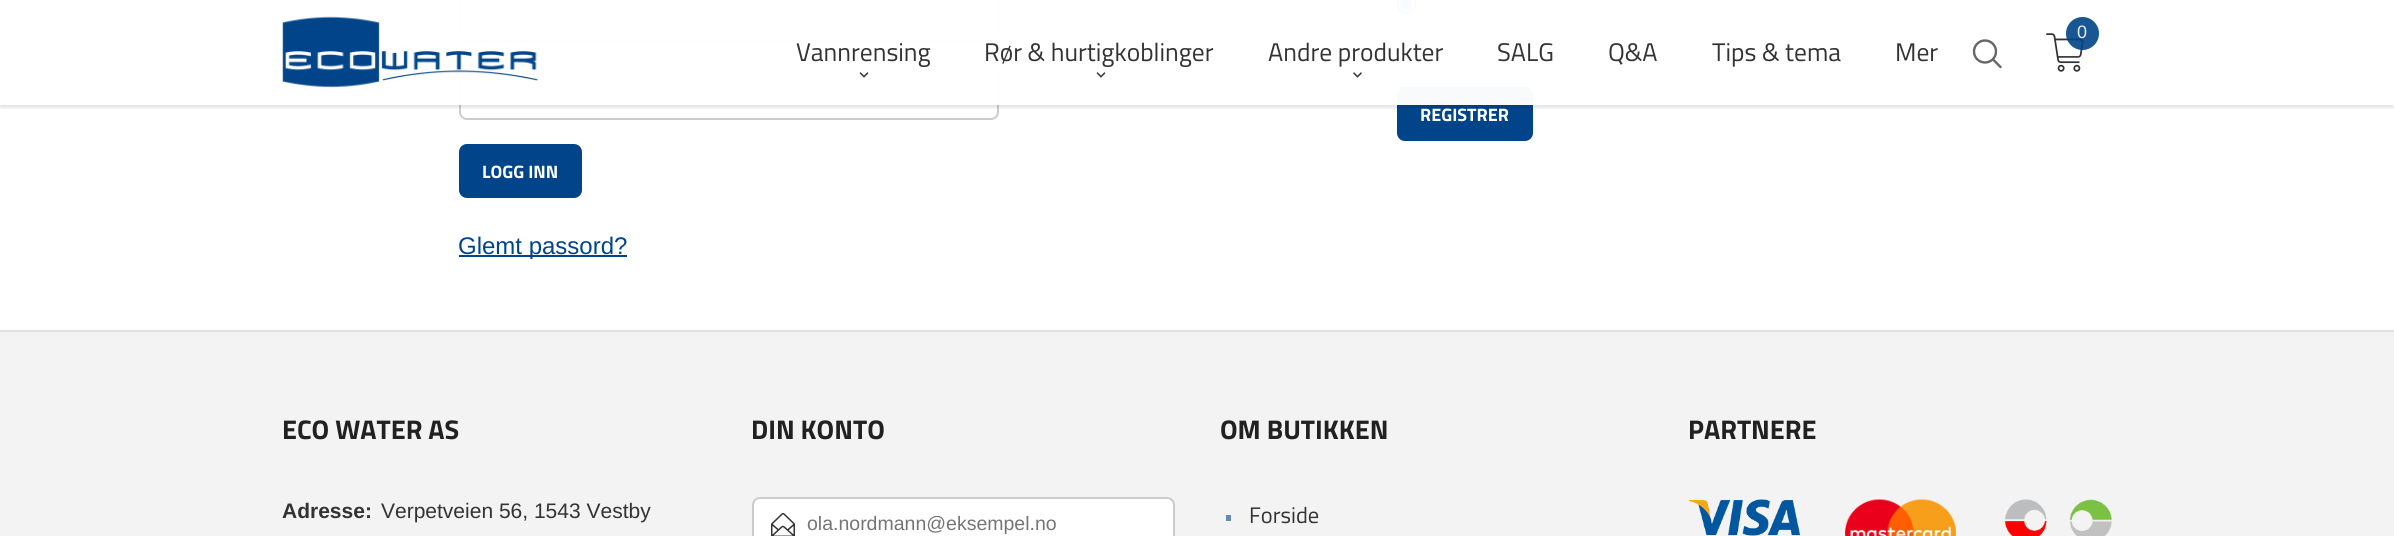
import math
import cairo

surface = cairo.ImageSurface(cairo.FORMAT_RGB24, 2394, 536)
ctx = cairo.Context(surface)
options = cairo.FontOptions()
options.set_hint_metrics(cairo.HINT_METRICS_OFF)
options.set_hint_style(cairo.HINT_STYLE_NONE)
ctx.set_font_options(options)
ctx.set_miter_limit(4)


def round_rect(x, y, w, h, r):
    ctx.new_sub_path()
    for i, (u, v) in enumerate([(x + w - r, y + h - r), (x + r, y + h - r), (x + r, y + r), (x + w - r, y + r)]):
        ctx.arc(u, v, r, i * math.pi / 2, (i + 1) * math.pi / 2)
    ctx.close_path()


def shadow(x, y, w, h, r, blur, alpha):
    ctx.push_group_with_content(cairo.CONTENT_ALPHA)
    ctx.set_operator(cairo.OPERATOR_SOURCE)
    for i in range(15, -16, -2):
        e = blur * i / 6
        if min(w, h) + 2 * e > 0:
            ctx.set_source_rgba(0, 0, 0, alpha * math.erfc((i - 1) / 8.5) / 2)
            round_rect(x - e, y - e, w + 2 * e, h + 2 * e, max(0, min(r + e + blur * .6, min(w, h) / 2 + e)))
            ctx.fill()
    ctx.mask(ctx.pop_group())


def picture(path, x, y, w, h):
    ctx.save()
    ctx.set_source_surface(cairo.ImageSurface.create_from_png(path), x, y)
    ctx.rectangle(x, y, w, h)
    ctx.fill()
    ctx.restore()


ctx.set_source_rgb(0.953, 0.953, 0.953)
ctx.paint()
ctx.set_source_rgb(1, 1, 1)
ctx.rectangle(0, 0, 2394, 330)
ctx.fill()
round_rect(1398, -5, 17, 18, 8.5)
ctx.set_source_rgb(0, 0.459, 1)
ctx.stroke()
ctx.arc(1406, 4, 6, 0, 2 * math.pi)
ctx.fill()
ctx.arc(1406.5, 53.5, 8.5, 0, 2 * math.pi)
ctx.set_source_rgb(0.463, 0.463, 0.463)
ctx.stroke()
ctx.set_source_rgb(0.004, 0.267, 0.537)
round_rect(1397, 87, 136, 54, 8)
ctx.fill()
round_rect(460, -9, 538, 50, 7)
ctx.set_source_rgb(0.8, 0.8, 0.8)
ctx.stroke()
round_rect(460, 67, 538, 52, 7)
ctx.stroke()
ctx.save()
ctx.rectangle(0, 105, 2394, 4)
ctx.clip()
ctx.set_source_rgb(0, 0, 0)
shadow(0, 3, 2394, 105, 0, 1.5, 0.1)
ctx.restore()
picture("img1.png", 2046, 33, 38, 39)
ctx.set_source_rgba(0.004, 0.267, 0.537, 0.9)
ctx.arc(2082.5, 33.5, 16.5, 0, 2 * math.pi)
ctx.fill()
ctx.select_font_face("Liberation Sans")
ctx.set_font_size(18)
ctx.set_source_rgb(0.91, 0.933, 0.957)
ctx.move_to(2077, 38)
ctx.show_text("0")
ctx.set_source_rgba(1, 1, 1, 0.97)
ctx.rectangle(459, 0, 1074, 105)
ctx.fill()
picture("img2.png", 282, 16, 257, 72)
ctx.select_font_face("Titillium Web")
ctx.set_font_size(25.5)
ctx.set_source_rgb(0.2, 0.2, 0.2)
ctx.move_to(796, 61)
ctx.show_text("Vannrensing")
picture("img3.png", 859, 72, 10, 6)
ctx.move_to(984, 61)
ctx.show_text("Rør & hurtigkoblinger")
picture("img3.png", 1096, 72, 10, 6)
ctx.move_to(1268, 61)
ctx.show_text("Andre produkter")
picture("img4.png", 1353, 72, 9, 6)
ctx.move_to(1497, 61)
ctx.show_text("SALG")
ctx.move_to(1608, 61)
ctx.show_text("Q&A")
ctx.move_to(1712, 61)
ctx.show_text("Tips & tema")
ctx.move_to(1895, 61)
ctx.show_text("Mer")
ctx.new_path()
ctx.arc(1985, 51.5, 11, 0, 2 * math.pi)
ctx.set_source_rgb(0.4, 0.4, 0.4)
ctx.set_line_width(2.4)
ctx.stroke()
ctx.new_path()
ctx.move_to(2000.5, 67)
ctx.line_to(1993, 59.5)
ctx.set_line_cap(cairo.LINE_CAP_ROUND)
ctx.stroke()
ctx.select_font_face("Titillium Web", cairo.FONT_SLANT_NORMAL, cairo.FONT_WEIGHT_BOLD)
ctx.set_font_size(18)
ctx.set_source_rgb(1, 1, 1)
ctx.move_to(1420, 121)
ctx.show_text("REGISTRER")
ctx.set_source_rgb(0.004, 0.267, 0.537)
round_rect(459, 144, 123, 54, 8)
ctx.fill()
ctx.set_source_rgb(1, 1, 1)
ctx.move_to(482, 178)
ctx.show_text("LOGG INN")
ctx.set_source_rgb(0.004, 0.267, 0.537)
ctx.rectangle(459, 255, 168, 2)
ctx.fill()
ctx.select_font_face("Liberation Sans")
ctx.set_font_size(24)
ctx.move_to(458, 254)
ctx.show_text("Glemt passord?")
ctx.set_source_rgb(0.878, 0.878, 0.878)
ctx.rectangle(0, 330, 2394, 2)
ctx.fill()
ctx.select_font_face("Titillium Web", cairo.FONT_SLANT_NORMAL, cairo.FONT_WEIGHT_BOLD)
ctx.set_font_size(27)
ctx.set_source_rgb(0.129, 0.129, 0.129)
ctx.move_to(282, 439)
ctx.show_text("ECO WATER AS")
ctx.select_font_face("Liberation Sans", cairo.FONT_SLANT_NORMAL, cairo.FONT_WEIGHT_BOLD)
ctx.set_font_size(21)
ctx.set_source_rgb(0.2, 0.2, 0.2)
ctx.move_to(282, 518)
ctx.show_text("Adresse:")
ctx.select_font_face("Liberation Sans")
ctx.move_to(381, 518)
ctx.show_text("Verpetveien 56, 1543 Vestby")
ctx.select_font_face("Titillium Web", cairo.FONT_SLANT_NORMAL, cairo.FONT_WEIGHT_BOLD)
ctx.set_font_size(27)
ctx.set_source_rgb(0.129, 0.129, 0.129)
ctx.move_to(751, 439)
ctx.show_text("DIN KONTO")
ctx.set_source_rgb(1, 1, 1)
round_rect(753, 498, 421, 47, 7)
ctx.fill_preserve()
ctx.set_source_rgb(0.8, 0.8, 0.8)
ctx.set_line_width(2)
ctx.set_line_cap(cairo.LINE_CAP_BUTT)
ctx.stroke()
picture("img5.png", 771, 513, 24, 23)
ctx.select_font_face("Liberation Sans")
ctx.set_font_size(19.5)
ctx.set_source_rgb(0.459, 0.459, 0.459)
ctx.move_to(807, 530)
ctx.show_text("ola.nordmann@eksempel.no")
ctx.select_font_face("Titillium Web", cairo.FONT_SLANT_NORMAL, cairo.FONT_WEIGHT_BOLD)
ctx.set_font_size(27)
ctx.set_source_rgb(0.129, 0.129, 0.129)
ctx.move_to(1220, 439)
ctx.show_text("OM BUTIKKEN")
ctx.set_source_rgb(0.384, 0.541, 0.702)
ctx.rectangle(1226, 515, 5, 6)
ctx.fill()
ctx.select_font_face("Titillium Web")
ctx.set_font_size(22.5)
ctx.set_source_rgb(0.2, 0.2, 0.2)
ctx.move_to(1249, 523)
ctx.show_text("Forside")
ctx.select_font_face("Titillium Web", cairo.FONT_SLANT_NORMAL, cairo.FONT_WEIGHT_BOLD)
ctx.set_font_size(27)
ctx.set_source_rgb(0.129, 0.129, 0.129)
ctx.move_to(1688, 439)
ctx.show_text("PARTNERE")
picture("img6.png", 1689, 499, 111, 37)
picture("img7.png", 1845, 499, 111, 37)
picture("img8.png", 2004, 499, 108, 37)
surface.write_to_png("page.png")
